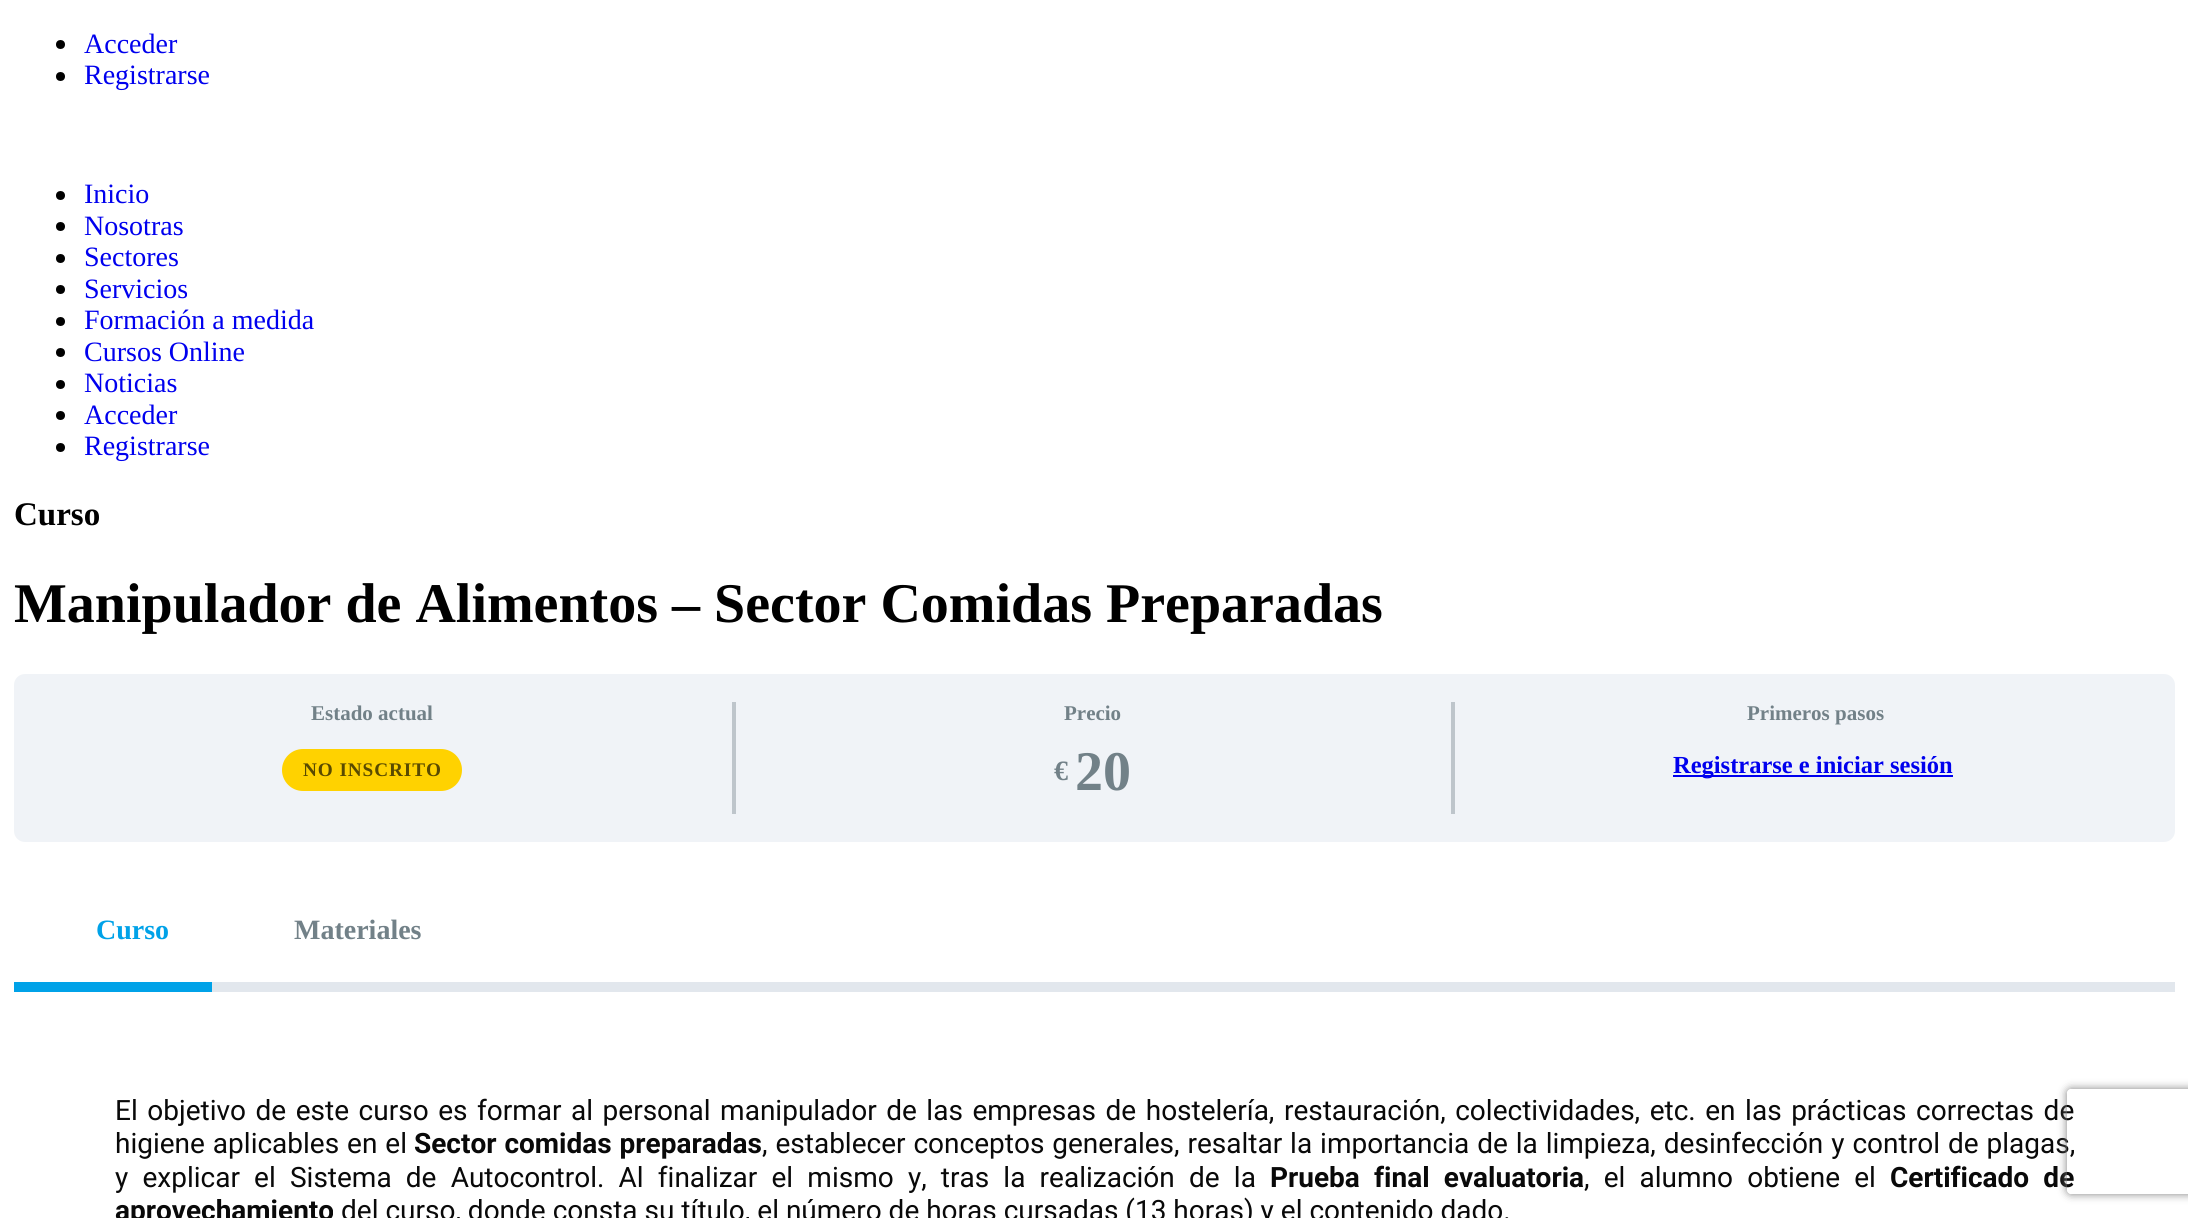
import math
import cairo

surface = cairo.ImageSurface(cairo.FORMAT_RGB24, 2188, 1218)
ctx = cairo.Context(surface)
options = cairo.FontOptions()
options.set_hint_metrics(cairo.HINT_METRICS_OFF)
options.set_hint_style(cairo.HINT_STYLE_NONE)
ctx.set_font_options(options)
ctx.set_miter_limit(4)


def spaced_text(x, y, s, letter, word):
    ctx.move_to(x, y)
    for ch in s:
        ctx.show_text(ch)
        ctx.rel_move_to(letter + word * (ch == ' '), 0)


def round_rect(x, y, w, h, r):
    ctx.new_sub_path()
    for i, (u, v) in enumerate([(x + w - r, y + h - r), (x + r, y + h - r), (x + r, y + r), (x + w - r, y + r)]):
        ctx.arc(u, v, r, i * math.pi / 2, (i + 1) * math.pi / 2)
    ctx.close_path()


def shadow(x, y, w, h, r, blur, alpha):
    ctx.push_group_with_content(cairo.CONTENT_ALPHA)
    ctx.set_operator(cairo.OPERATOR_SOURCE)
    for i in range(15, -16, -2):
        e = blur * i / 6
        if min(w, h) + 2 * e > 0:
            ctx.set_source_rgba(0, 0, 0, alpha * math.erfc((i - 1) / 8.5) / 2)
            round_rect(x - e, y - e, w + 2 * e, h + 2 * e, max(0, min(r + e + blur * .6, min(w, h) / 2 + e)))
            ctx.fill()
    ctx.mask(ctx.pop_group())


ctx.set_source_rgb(1, 1, 1)
ctx.paint()
ctx.set_source_rgb(0, 0, 0)
ctx.arc(60.5, 44.5, 4.5, 0, 2 * math.pi)
ctx.fill()
ctx.select_font_face("Liberation Serif")
ctx.set_font_size(28)
ctx.set_source_rgb(0, 0, 0.933)
ctx.move_to(84, 53)
ctx.show_text("Acceder")
ctx.set_source_rgb(0, 0, 0)
ctx.new_path()
ctx.arc(60.5, 76.5, 4.5, 0, 2 * math.pi)
ctx.fill()
ctx.set_source_rgb(0, 0, 0.933)
ctx.move_to(84, 84)
ctx.show_text("Registrarse")
ctx.set_source_rgb(0, 0, 0)
ctx.new_path()
ctx.arc(60.5, 195.5, 4.5, 0, 2 * math.pi)
ctx.fill()
ctx.set_source_rgb(0, 0, 0.933)
ctx.move_to(84, 203)
ctx.show_text("Inicio")
ctx.set_source_rgb(0, 0, 0)
ctx.new_path()
ctx.arc(60.5, 226.5, 4.5, 0, 2 * math.pi)
ctx.fill()
ctx.set_source_rgb(0, 0, 0.933)
ctx.move_to(84, 235)
ctx.show_text("Nosotras")
ctx.set_source_rgb(0, 0, 0)
ctx.new_path()
ctx.arc(60.5, 258.5, 4.5, 0, 2 * math.pi)
ctx.fill()
ctx.set_source_rgb(0, 0, 0.933)
ctx.move_to(84, 266)
ctx.show_text("Sectores")
ctx.set_source_rgb(0, 0, 0)
ctx.new_path()
ctx.arc(60.5, 289.5, 4.5, 0, 2 * math.pi)
ctx.fill()
ctx.set_source_rgb(0, 0, 0.933)
ctx.move_to(84, 298)
ctx.show_text("Servicios")
ctx.set_source_rgb(0, 0, 0)
ctx.new_path()
ctx.arc(60.5, 321.5, 4.5, 0, 2 * math.pi)
ctx.fill()
ctx.set_source_rgb(0, 0, 0.933)
ctx.move_to(84, 329)
ctx.show_text("Formación a medida")
ctx.set_source_rgb(0, 0, 0)
ctx.new_path()
ctx.arc(60.5, 352.5, 4.5, 0, 2 * math.pi)
ctx.fill()
ctx.set_source_rgb(0, 0, 0.933)
ctx.move_to(84, 361)
ctx.show_text("Cursos Online")
ctx.set_source_rgb(0, 0, 0)
ctx.new_path()
ctx.arc(60.5, 384.5, 4.5, 0, 2 * math.pi)
ctx.fill()
ctx.set_source_rgb(0, 0, 0.933)
ctx.move_to(84, 392)
ctx.show_text("Noticias")
ctx.set_source_rgb(0, 0, 0)
ctx.new_path()
ctx.arc(60.5, 415.5, 4.5, 0, 2 * math.pi)
ctx.fill()
ctx.set_source_rgb(0, 0, 0.933)
ctx.move_to(84, 424)
ctx.show_text("Acceder")
ctx.set_source_rgb(0, 0, 0)
ctx.new_path()
ctx.arc(60.5, 447.5, 4.5, 0, 2 * math.pi)
ctx.fill()
ctx.set_source_rgb(0, 0, 0.933)
ctx.move_to(84, 455)
ctx.show_text("Registrarse")
ctx.select_font_face("Liberation Serif", cairo.FONT_SLANT_NORMAL, cairo.FONT_WEIGHT_BOLD)
ctx.set_font_size(33)
ctx.set_source_rgb(0, 0, 0)
ctx.move_to(14, 525)
ctx.show_text("Curso")
ctx.set_font_size(56)
ctx.move_to(14, 622)
ctx.show_text("Manipulador de Alimentos – Sector Comidas Preparadas")
ctx.set_source_rgb(0.941, 0.953, 0.965)
round_rect(14, 674, 2161, 168, 11)
ctx.fill()
ctx.set_source_rgb(0.745, 0.773, 0.796)
ctx.rectangle(732, 702, 4, 112)
ctx.fill()
ctx.set_font_size(21)
ctx.set_source_rgb(0.447, 0.506, 0.533)
ctx.move_to(311, 720)
ctx.show_text("Estado actual")
ctx.set_source_rgb(1, 0.824, 0)
round_rect(282, 749, 180, 42, 21)
ctx.fill()
ctx.set_font_size(19.25)
ctx.set_source_rgb(0.349, 0.29, 0)
spaced_text(303, 776, "NO INSCRITO", 0.9, 0)
ctx.set_source_rgb(0.745, 0.773, 0.796)
ctx.rectangle(1451, 702, 4, 112)
ctx.fill()
ctx.set_font_size(21)
ctx.set_source_rgb(0.447, 0.506, 0.533)
ctx.move_to(1064, 720)
ctx.show_text("Precio")
ctx.set_font_size(28)
ctx.move_to(1054, 780)
ctx.show_text("€")
ctx.set_font_size(56)
ctx.move_to(1075, 790)
ctx.show_text("20")
ctx.set_font_size(21)
ctx.move_to(1747, 720)
ctx.show_text("Primeros pasos")
ctx.set_source_rgb(0, 0, 0.933)
ctx.rectangle(1673, 775, 280, 2)
ctx.fill()
ctx.set_font_size(24.5)
ctx.move_to(1673, 773)
ctx.show_text("Registrarse e iniciar sesión")
ctx.set_font_size(28)
ctx.set_source_rgb(0, 0.635, 0.91)
ctx.move_to(96, 939)
ctx.show_text("Curso")
ctx.rectangle(14, 982, 198, 10)
ctx.fill()
ctx.set_source_rgb(0.447, 0.506, 0.533)
ctx.move_to(294, 939)
ctx.show_text("Materiales")
ctx.set_source_rgb(0.886, 0.906, 0.929)
ctx.rectangle(212, 982, 1963, 10)
ctx.fill()
ctx.select_font_face("Roboto")
ctx.set_source_rgb(0.039, 0.039, 0.039)
spaced_text(115, 1120, "El objetivo de este curso es formar al personal manipulador de las empresas de hostelería, restauración, colectividades, etc. en las prácticas correctas de", 0, 2.6)
spaced_text(115, 1153, "higiene aplicables en el", 0, 1)
ctx.select_font_face("Roboto", cairo.FONT_SLANT_NORMAL, cairo.FONT_WEIGHT_BOLD)
spaced_text(414, 1153, "Sector comidas preparadas", 0, 1)
ctx.select_font_face("Roboto")
spaced_text(762, 1153, ", establecer conceptos generales, resaltar la importancia de la limpieza, desinfección y control de plagas,", 0, 1)
spaced_text(115, 1187, "y explicar el Sistema de Autocontrol. Al finalizar el mismo y, tras la realización de la", 0, 7.25)
ctx.select_font_face("Roboto", cairo.FONT_SLANT_NORMAL, cairo.FONT_WEIGHT_BOLD)
spaced_text(1270, 1187, "Prueba final evaluatoria", 0, 7.25)
ctx.select_font_face("Roboto")
spaced_text(1584, 1187, ", el alumno obtiene el", 0, 7.25)
ctx.select_font_face("Roboto", cairo.FONT_SLANT_NORMAL, cairo.FONT_WEIGHT_BOLD)
spaced_text(1890, 1187, "Certificado de", 0, 7.25)
ctx.move_to(115, 1220)
ctx.show_text("aprovechamiento")
ctx.select_font_face("Roboto")
ctx.move_to(341, 1220)
ctx.show_text("del curso, donde consta su título, el número de horas cursadas (13 horas) y el contenido dado.")
ctx.save()
ctx.set_fill_rule(cairo.FILL_RULE_EVEN_ODD)
ctx.new_path()
ctx.move_to(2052, 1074)
ctx.line_to(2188, 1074)
ctx.line_to(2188, 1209)
ctx.line_to(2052, 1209)
ctx.close_path()
ctx.move_to(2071, 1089)
ctx.line_to(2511, 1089)
ctx.curve_to(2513, 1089, 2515, 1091, 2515, 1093)
ctx.line_to(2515, 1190)
ctx.curve_to(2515, 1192, 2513, 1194, 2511, 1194)
ctx.line_to(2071, 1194)
ctx.curve_to(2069, 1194, 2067, 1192, 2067, 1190)
ctx.line_to(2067, 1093)
ctx.curve_to(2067, 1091, 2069, 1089, 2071, 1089)
ctx.close_path()
ctx.clip()
ctx.set_source_rgb(0.502, 0.502, 0.502)
shadow(2067, 1089, 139, 105, 4, 4.5, 1)
ctx.restore()
surface.write_to_png("page.png")
